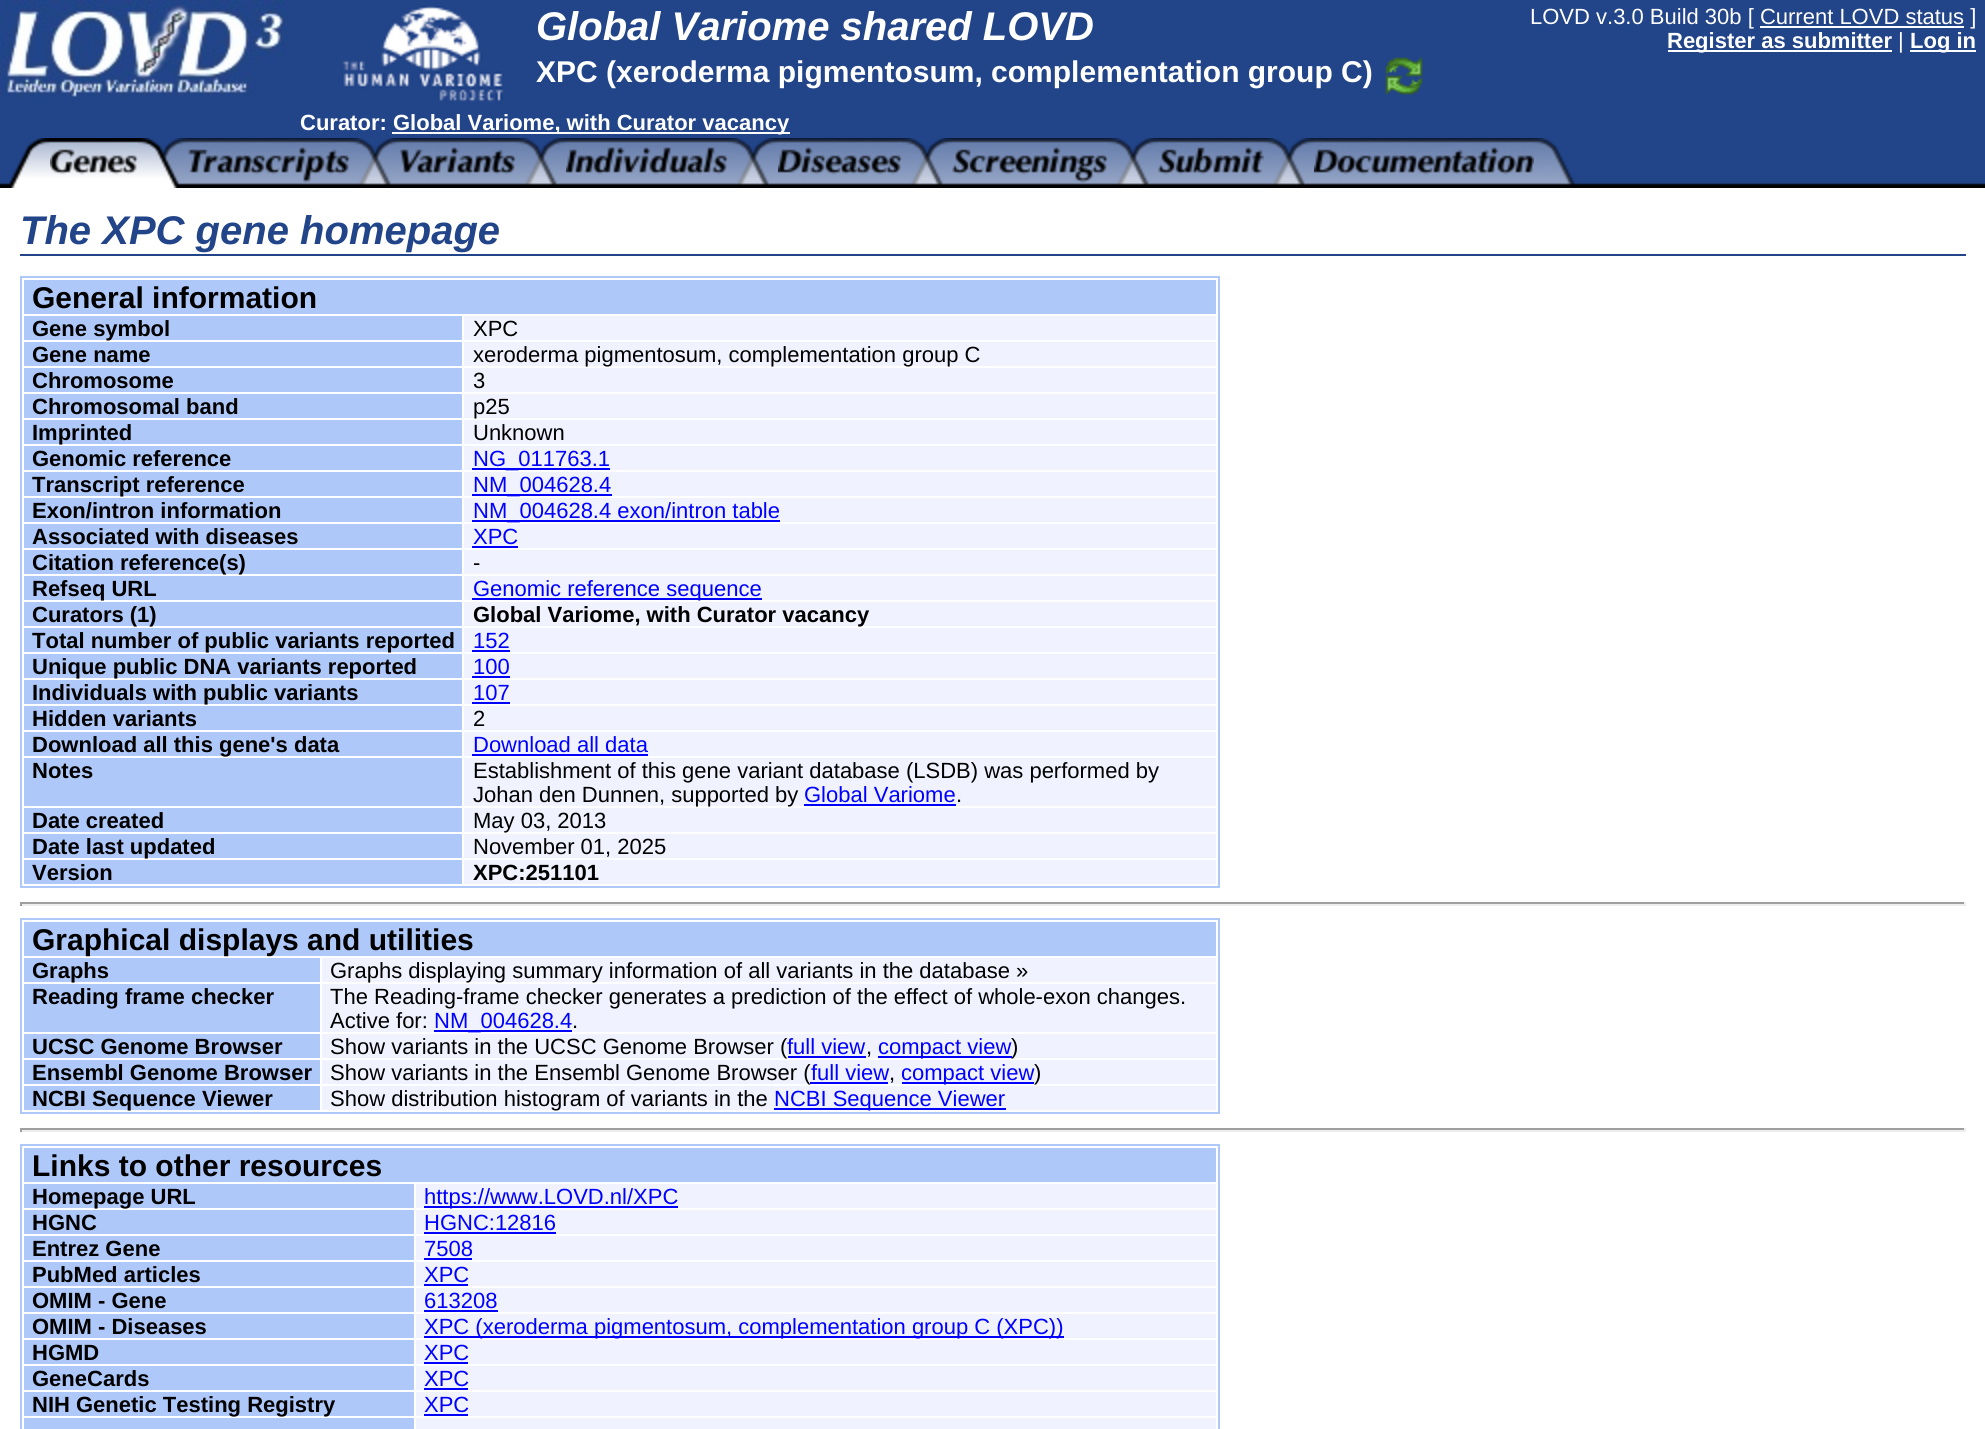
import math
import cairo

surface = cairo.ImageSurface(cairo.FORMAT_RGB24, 1985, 1429)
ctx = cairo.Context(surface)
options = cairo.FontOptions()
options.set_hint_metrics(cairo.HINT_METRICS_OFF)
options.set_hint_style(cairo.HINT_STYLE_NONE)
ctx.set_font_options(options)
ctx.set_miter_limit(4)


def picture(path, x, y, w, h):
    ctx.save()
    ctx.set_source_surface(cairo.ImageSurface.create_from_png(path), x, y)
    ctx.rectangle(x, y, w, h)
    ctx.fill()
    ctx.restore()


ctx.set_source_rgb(1, 1, 1)
ctx.paint()
ctx.set_source_rgb(0.133, 0.267, 0.533)
ctx.rectangle(0, 0, 1985, 110)
ctx.fill()
picture("img1.png", 0, 0, 287, 98)
picture("img2.png", 342, 6, 162, 96)
ctx.select_font_face("Liberation Sans", cairo.FONT_SLANT_ITALIC, cairo.FONT_WEIGHT_BOLD)
ctx.set_font_size(40)
ctx.set_source_rgb(1, 1, 1)
ctx.move_to(536, 40)
ctx.show_text("Global Variome shared LOVD")
ctx.select_font_face("Liberation Sans", cairo.FONT_SLANT_NORMAL, cairo.FONT_WEIGHT_BOLD)
ctx.set_font_size(30)
ctx.move_to(536, 82)
ctx.show_text("XPC (xeroderma pigmentosum, complementation group C)")
picture("img3.png", 1385, 57, 38, 38)
ctx.select_font_face("Liberation Sans")
ctx.set_font_size(22)
ctx.move_to(1530, 24)
ctx.show_text("LOVD v.3.0 Build 30b [ Current LOVD status ]")
ctx.rectangle(1760, 26, 204, 2)
ctx.fill()
ctx.rectangle(1668, 50, 224, 2)
ctx.fill()
ctx.select_font_face("Liberation Sans", cairo.FONT_SLANT_NORMAL, cairo.FONT_WEIGHT_BOLD)
ctx.move_to(1667, 48)
ctx.show_text("Register as submitter")
ctx.select_font_face("Liberation Sans")
ctx.move_to(1898, 48)
ctx.show_text("|")
ctx.rectangle(1910, 50, 66, 2)
ctx.fill()
ctx.select_font_face("Liberation Sans", cairo.FONT_SLANT_NORMAL, cairo.FONT_WEIGHT_BOLD)
ctx.move_to(1910, 48)
ctx.show_text("Log in")
ctx.set_source_rgb(0.133, 0.267, 0.533)
ctx.rectangle(0, 110, 1985, 73)
ctx.fill()
ctx.set_source_rgb(1, 1, 1)
ctx.move_to(300, 130)
ctx.show_text("Curator:")
ctx.rectangle(392, 132, 398, 2)
ctx.fill()
ctx.move_to(393, 130)
ctx.show_text("Global Variome, with Curator vacancy")
picture("img4.png", 0, 183, 1985, 5)
picture("img5.png", 9, 138, 41, 50)
picture("img6.png", 50, 138, 88, 50)
picture("img7.png", 138, 138, 50, 50)
picture("img8.png", 188, 138, 162, 47)
picture("img9.png", 350, 138, 50, 47)
picture("img10.png", 400, 138, 116, 47)
picture("img9.png", 516, 138, 50, 47)
picture("img11.png", 566, 138, 162, 47)
picture("img9.png", 728, 138, 50, 47)
picture("img12.png", 778, 138, 124, 47)
picture("img9.png", 902, 138, 50, 47)
picture("img13.png", 952, 138, 156, 47)
picture("img9.png", 1108, 138, 50, 47)
picture("img14.png", 1158, 138, 106, 47)
picture("img9.png", 1264, 138, 50, 47)
picture("img15.png", 1314, 138, 220, 47)
picture("img16.png", 1534, 138, 41, 47)
ctx.set_source_rgb(0.133, 0.267, 0.533)
ctx.rectangle(20, 254, 1946, 2)
ctx.fill()
ctx.select_font_face("Liberation Sans", cairo.FONT_SLANT_ITALIC, cairo.FONT_WEIGHT_BOLD)
ctx.set_font_size(40)
ctx.move_to(20, 244)
ctx.show_text("The XPC gene homepage")
ctx.rectangle(21, 277, 1198, 610)
ctx.set_source_rgb(0.686, 0.784, 0.98)
ctx.stroke()
ctx.rectangle(24, 280, 1192, 34)
ctx.fill()
ctx.select_font_face("Liberation Sans", cairo.FONT_SLANT_NORMAL, cairo.FONT_WEIGHT_BOLD)
ctx.set_font_size(30)
ctx.set_source_rgb(0, 0, 0)
ctx.move_to(32, 308)
ctx.show_text("General information")
ctx.set_source_rgb(0.686, 0.784, 0.98)
ctx.rectangle(24, 316, 438, 24)
ctx.fill()
ctx.set_font_size(22)
ctx.set_source_rgb(0, 0, 0)
ctx.move_to(32, 336)
ctx.show_text("Gene symbol")
ctx.set_source_rgb(0.941, 0.953, 1)
ctx.rectangle(464, 316, 752, 24)
ctx.fill()
ctx.select_font_face("Liberation Sans")
ctx.set_source_rgb(0, 0, 0)
ctx.move_to(473, 336)
ctx.show_text("XPC")
ctx.set_source_rgb(0.686, 0.784, 0.98)
ctx.rectangle(24, 342, 438, 24)
ctx.fill()
ctx.select_font_face("Liberation Sans", cairo.FONT_SLANT_NORMAL, cairo.FONT_WEIGHT_BOLD)
ctx.set_source_rgb(0, 0, 0)
ctx.move_to(32, 362)
ctx.show_text("Gene name")
ctx.set_source_rgb(0.941, 0.953, 1)
ctx.rectangle(464, 342, 752, 24)
ctx.fill()
ctx.select_font_face("Liberation Sans")
ctx.set_source_rgb(0, 0, 0)
ctx.move_to(473, 362)
ctx.show_text("xeroderma pigmentosum, complementation group C")
ctx.set_source_rgb(0.686, 0.784, 0.98)
ctx.rectangle(24, 368, 438, 24)
ctx.fill()
ctx.select_font_face("Liberation Sans", cairo.FONT_SLANT_NORMAL, cairo.FONT_WEIGHT_BOLD)
ctx.set_source_rgb(0, 0, 0)
ctx.move_to(32, 388)
ctx.show_text("Chromosome")
ctx.set_source_rgb(0.941, 0.953, 1)
ctx.rectangle(464, 368, 752, 24)
ctx.fill()
ctx.select_font_face("Liberation Sans")
ctx.set_source_rgb(0, 0, 0)
ctx.move_to(473, 388)
ctx.show_text("3")
ctx.set_source_rgb(0.686, 0.784, 0.98)
ctx.rectangle(24, 394, 438, 24)
ctx.fill()
ctx.select_font_face("Liberation Sans", cairo.FONT_SLANT_NORMAL, cairo.FONT_WEIGHT_BOLD)
ctx.set_source_rgb(0, 0, 0)
ctx.move_to(32, 414)
ctx.show_text("Chromosomal band")
ctx.set_source_rgb(0.941, 0.953, 1)
ctx.rectangle(464, 394, 752, 24)
ctx.fill()
ctx.select_font_face("Liberation Sans")
ctx.set_source_rgb(0, 0, 0)
ctx.move_to(473, 414)
ctx.show_text("p25")
ctx.set_source_rgb(0.686, 0.784, 0.98)
ctx.rectangle(24, 420, 438, 24)
ctx.fill()
ctx.select_font_face("Liberation Sans", cairo.FONT_SLANT_NORMAL, cairo.FONT_WEIGHT_BOLD)
ctx.set_source_rgb(0, 0, 0)
ctx.move_to(32, 440)
ctx.show_text("Imprinted")
ctx.set_source_rgb(0.941, 0.953, 1)
ctx.rectangle(464, 420, 752, 24)
ctx.fill()
ctx.select_font_face("Liberation Sans")
ctx.set_source_rgb(0, 0, 0)
ctx.move_to(473, 440)
ctx.show_text("Unknown")
ctx.set_source_rgb(0.686, 0.784, 0.98)
ctx.rectangle(24, 446, 438, 24)
ctx.fill()
ctx.select_font_face("Liberation Sans", cairo.FONT_SLANT_NORMAL, cairo.FONT_WEIGHT_BOLD)
ctx.set_source_rgb(0, 0, 0)
ctx.move_to(32, 466)
ctx.show_text("Genomic reference")
ctx.set_source_rgb(0.941, 0.953, 1)
ctx.rectangle(464, 446, 752, 24)
ctx.fill()
ctx.set_source_rgb(0, 0, 1)
ctx.rectangle(472, 468, 138, 2)
ctx.fill()
ctx.select_font_face("Liberation Sans")
ctx.move_to(473, 466)
ctx.show_text("NG_011763.1")
ctx.set_source_rgb(0.686, 0.784, 0.98)
ctx.rectangle(24, 472, 438, 24)
ctx.fill()
ctx.select_font_face("Liberation Sans", cairo.FONT_SLANT_NORMAL, cairo.FONT_WEIGHT_BOLD)
ctx.set_source_rgb(0, 0, 0)
ctx.move_to(32, 492)
ctx.show_text("Transcript reference")
ctx.set_source_rgb(0.941, 0.953, 1)
ctx.rectangle(464, 472, 752, 24)
ctx.fill()
ctx.set_source_rgb(0, 0, 1)
ctx.rectangle(472, 494, 140, 2)
ctx.fill()
ctx.select_font_face("Liberation Sans")
ctx.move_to(473, 492)
ctx.show_text("NM_004628.4")
ctx.set_source_rgb(0.686, 0.784, 0.98)
ctx.rectangle(24, 498, 438, 24)
ctx.fill()
ctx.select_font_face("Liberation Sans", cairo.FONT_SLANT_NORMAL, cairo.FONT_WEIGHT_BOLD)
ctx.set_source_rgb(0, 0, 0)
ctx.move_to(32, 518)
ctx.show_text("Exon/intron information")
ctx.set_source_rgb(0.941, 0.953, 1)
ctx.rectangle(464, 498, 752, 24)
ctx.fill()
ctx.set_source_rgb(0, 0, 1)
ctx.rectangle(472, 520, 308, 2)
ctx.fill()
ctx.select_font_face("Liberation Sans")
ctx.move_to(473, 518)
ctx.show_text("NM_004628.4 exon/intron table")
ctx.set_source_rgb(0.686, 0.784, 0.98)
ctx.rectangle(24, 524, 438, 24)
ctx.fill()
ctx.select_font_face("Liberation Sans", cairo.FONT_SLANT_NORMAL, cairo.FONT_WEIGHT_BOLD)
ctx.set_source_rgb(0, 0, 0)
ctx.move_to(32, 544)
ctx.show_text("Associated with diseases")
ctx.set_source_rgb(0.941, 0.953, 1)
ctx.rectangle(464, 524, 752, 24)
ctx.fill()
ctx.select_font_face("Liberation Sans")
ctx.set_source_rgb(0, 0, 1)
ctx.move_to(473, 544)
ctx.show_text("XPC")
ctx.rectangle(472, 546, 46, 2)
ctx.fill()
ctx.set_source_rgb(0.686, 0.784, 0.98)
ctx.rectangle(24, 550, 438, 24)
ctx.fill()
ctx.select_font_face("Liberation Sans", cairo.FONT_SLANT_NORMAL, cairo.FONT_WEIGHT_BOLD)
ctx.set_source_rgb(0, 0, 0)
ctx.move_to(32, 570)
ctx.show_text("Citation reference(s)")
ctx.set_source_rgb(0.941, 0.953, 1)
ctx.rectangle(464, 550, 752, 24)
ctx.fill()
ctx.select_font_face("Liberation Sans")
ctx.set_source_rgb(0, 0, 0)
ctx.move_to(473, 570)
ctx.show_text("-")
ctx.set_source_rgb(0.686, 0.784, 0.98)
ctx.rectangle(24, 576, 438, 24)
ctx.fill()
ctx.select_font_face("Liberation Sans", cairo.FONT_SLANT_NORMAL, cairo.FONT_WEIGHT_BOLD)
ctx.set_source_rgb(0, 0, 0)
ctx.move_to(32, 596)
ctx.show_text("Refseq URL")
ctx.set_source_rgb(0.941, 0.953, 1)
ctx.rectangle(464, 576, 752, 24)
ctx.fill()
ctx.set_source_rgb(0, 0, 1)
ctx.rectangle(472, 598, 290, 2)
ctx.fill()
ctx.select_font_face("Liberation Sans")
ctx.move_to(473, 596)
ctx.show_text("Genomic reference sequence")
ctx.set_source_rgb(0.686, 0.784, 0.98)
ctx.rectangle(24, 602, 438, 24)
ctx.fill()
ctx.select_font_face("Liberation Sans", cairo.FONT_SLANT_NORMAL, cairo.FONT_WEIGHT_BOLD)
ctx.set_source_rgb(0, 0, 0)
ctx.move_to(32, 622)
ctx.show_text("Curators (1)")
ctx.set_source_rgb(0.941, 0.953, 1)
ctx.rectangle(464, 602, 752, 24)
ctx.fill()
ctx.set_source_rgb(0, 0, 0)
ctx.move_to(473, 622)
ctx.show_text("Global Variome, with Curator vacancy")
ctx.set_source_rgb(0.686, 0.784, 0.98)
ctx.rectangle(24, 628, 438, 24)
ctx.fill()
ctx.set_source_rgb(0, 0, 0)
ctx.move_to(32, 648)
ctx.show_text("Total number of public variants reported")
ctx.set_source_rgb(0.941, 0.953, 1)
ctx.rectangle(464, 628, 752, 24)
ctx.fill()
ctx.select_font_face("Liberation Sans")
ctx.set_source_rgb(0, 0, 1)
ctx.move_to(473, 648)
ctx.show_text("152")
ctx.rectangle(472, 650, 38, 2)
ctx.fill()
ctx.set_source_rgb(0.686, 0.784, 0.98)
ctx.rectangle(24, 654, 438, 24)
ctx.fill()
ctx.select_font_face("Liberation Sans", cairo.FONT_SLANT_NORMAL, cairo.FONT_WEIGHT_BOLD)
ctx.set_source_rgb(0, 0, 0)
ctx.move_to(32, 674)
ctx.show_text("Unique public DNA variants reported")
ctx.set_source_rgb(0.941, 0.953, 1)
ctx.rectangle(464, 654, 752, 24)
ctx.fill()
ctx.select_font_face("Liberation Sans")
ctx.set_source_rgb(0, 0, 1)
ctx.move_to(473, 674)
ctx.show_text("100")
ctx.rectangle(472, 676, 38, 2)
ctx.fill()
ctx.set_source_rgb(0.686, 0.784, 0.98)
ctx.rectangle(24, 680, 438, 24)
ctx.fill()
ctx.select_font_face("Liberation Sans", cairo.FONT_SLANT_NORMAL, cairo.FONT_WEIGHT_BOLD)
ctx.set_source_rgb(0, 0, 0)
ctx.move_to(32, 700)
ctx.show_text("Individuals with public variants")
ctx.set_source_rgb(0.941, 0.953, 1)
ctx.rectangle(464, 680, 752, 24)
ctx.fill()
ctx.select_font_face("Liberation Sans")
ctx.set_source_rgb(0, 0, 1)
ctx.move_to(473, 700)
ctx.show_text("107")
ctx.rectangle(472, 702, 38, 2)
ctx.fill()
ctx.set_source_rgb(0.686, 0.784, 0.98)
ctx.rectangle(24, 706, 438, 24)
ctx.fill()
ctx.select_font_face("Liberation Sans", cairo.FONT_SLANT_NORMAL, cairo.FONT_WEIGHT_BOLD)
ctx.set_source_rgb(0, 0, 0)
ctx.move_to(32, 726)
ctx.show_text("Hidden variants")
ctx.set_source_rgb(0.941, 0.953, 1)
ctx.rectangle(464, 706, 752, 24)
ctx.fill()
ctx.select_font_face("Liberation Sans")
ctx.set_source_rgb(0, 0, 0)
ctx.move_to(473, 726)
ctx.show_text("2")
ctx.set_source_rgb(0.686, 0.784, 0.98)
ctx.rectangle(24, 732, 438, 24)
ctx.fill()
ctx.select_font_face("Liberation Sans", cairo.FONT_SLANT_NORMAL, cairo.FONT_WEIGHT_BOLD)
ctx.set_source_rgb(0, 0, 0)
ctx.move_to(32, 752)
ctx.show_text("Download all this gene's data")
ctx.set_source_rgb(0.941, 0.953, 1)
ctx.rectangle(464, 732, 752, 24)
ctx.fill()
ctx.select_font_face("Liberation Sans")
ctx.set_source_rgb(0, 0, 1)
ctx.move_to(473, 752)
ctx.show_text("Download all data")
ctx.rectangle(472, 754, 176, 2)
ctx.fill()
ctx.set_source_rgb(0.686, 0.784, 0.98)
ctx.rectangle(24, 758, 438, 48)
ctx.fill()
ctx.select_font_face("Liberation Sans", cairo.FONT_SLANT_NORMAL, cairo.FONT_WEIGHT_BOLD)
ctx.set_source_rgb(0, 0, 0)
ctx.move_to(32, 778)
ctx.show_text("Notes")
ctx.set_source_rgb(0.941, 0.953, 1)
ctx.rectangle(464, 758, 752, 48)
ctx.fill()
ctx.select_font_face("Liberation Sans")
ctx.set_source_rgb(0, 0, 0)
ctx.move_to(473, 778)
ctx.show_text("Establishment of this gene variant database (LSDB) was performed by")
ctx.move_to(473, 802)
ctx.show_text("Johan den Dunnen, supported by")
ctx.set_source_rgb(0, 0, 1)
ctx.move_to(804, 802)
ctx.show_text("Global Variome")
ctx.rectangle(804, 804, 152, 2)
ctx.fill()
ctx.set_source_rgb(0, 0, 0)
ctx.move_to(956, 802)
ctx.show_text(".")
ctx.set_source_rgb(0.686, 0.784, 0.98)
ctx.rectangle(24, 808, 438, 24)
ctx.fill()
ctx.select_font_face("Liberation Sans", cairo.FONT_SLANT_NORMAL, cairo.FONT_WEIGHT_BOLD)
ctx.set_source_rgb(0, 0, 0)
ctx.move_to(32, 828)
ctx.show_text("Date created")
ctx.set_source_rgb(0.941, 0.953, 1)
ctx.rectangle(464, 808, 752, 24)
ctx.fill()
ctx.select_font_face("Liberation Sans")
ctx.set_source_rgb(0, 0, 0)
ctx.move_to(473, 828)
ctx.show_text("May 03, 2013")
ctx.set_source_rgb(0.686, 0.784, 0.98)
ctx.rectangle(24, 834, 438, 24)
ctx.fill()
ctx.select_font_face("Liberation Sans", cairo.FONT_SLANT_NORMAL, cairo.FONT_WEIGHT_BOLD)
ctx.set_source_rgb(0, 0, 0)
ctx.move_to(32, 854)
ctx.show_text("Date last updated")
ctx.set_source_rgb(0.941, 0.953, 1)
ctx.rectangle(464, 834, 752, 24)
ctx.fill()
ctx.select_font_face("Liberation Sans")
ctx.set_source_rgb(0, 0, 0)
ctx.move_to(473, 854)
ctx.show_text("November 01, 2025")
ctx.set_source_rgb(0.686, 0.784, 0.98)
ctx.rectangle(24, 860, 438, 24)
ctx.fill()
ctx.select_font_face("Liberation Sans", cairo.FONT_SLANT_NORMAL, cairo.FONT_WEIGHT_BOLD)
ctx.set_source_rgb(0, 0, 0)
ctx.move_to(32, 880)
ctx.show_text("Version")
ctx.set_source_rgb(0.941, 0.953, 1)
ctx.rectangle(464, 860, 752, 24)
ctx.fill()
ctx.set_source_rgb(0, 0, 0)
ctx.move_to(473, 880)
ctx.show_text("XPC:251101")
ctx.set_source_rgb(0.624, 0.624, 0.624)
ctx.rectangle(20, 902, 1946, 2)
ctx.fill()
ctx.set_source_rgb(0.933, 0.933, 0.933)
ctx.rectangle(1964, 902, 2, 4)
ctx.fill()
ctx.rectangle(20, 904, 1946, 2)
ctx.fill()
ctx.set_source_rgb(0.624, 0.624, 0.624)
ctx.rectangle(20, 902, 2, 4)
ctx.fill()
ctx.rectangle(21, 919, 1198, 194)
ctx.set_source_rgb(0.686, 0.784, 0.98)
ctx.stroke()
ctx.rectangle(24, 922, 1192, 34)
ctx.fill()
ctx.set_font_size(30)
ctx.set_source_rgb(0, 0, 0)
ctx.move_to(32, 950)
ctx.show_text("Graphical displays and utilities")
ctx.set_source_rgb(0.686, 0.784, 0.98)
ctx.rectangle(24, 958, 296, 24)
ctx.fill()
ctx.set_font_size(22)
ctx.set_source_rgb(0, 0, 0)
ctx.move_to(32, 978)
ctx.show_text("Graphs")
ctx.set_source_rgb(0.941, 0.953, 1)
ctx.rectangle(322, 958, 894, 24)
ctx.fill()
ctx.select_font_face("Liberation Sans")
ctx.set_source_rgb(0, 0, 0)
ctx.move_to(330, 978)
ctx.show_text("Graphs displaying summary information of all variants in the database »")
ctx.set_source_rgb(0.686, 0.784, 0.98)
ctx.rectangle(24, 984, 296, 48)
ctx.fill()
ctx.select_font_face("Liberation Sans", cairo.FONT_SLANT_NORMAL, cairo.FONT_WEIGHT_BOLD)
ctx.set_source_rgb(0, 0, 0)
ctx.move_to(32, 1004)
ctx.show_text("Reading frame checker")
ctx.set_source_rgb(0.941, 0.953, 1)
ctx.rectangle(322, 984, 894, 48)
ctx.fill()
ctx.select_font_face("Liberation Sans")
ctx.set_source_rgb(0, 0, 0)
ctx.move_to(330, 1004)
ctx.show_text("The Reading-frame checker generates a prediction of the effect of whole-exon changes.")
ctx.move_to(330, 1028)
ctx.show_text("Active for:")
ctx.set_source_rgb(0, 0, 1)
ctx.rectangle(434, 1030, 138, 2)
ctx.fill()
ctx.move_to(434, 1028)
ctx.show_text("NM_004628.4")
ctx.set_source_rgb(0, 0, 0)
ctx.move_to(572, 1028)
ctx.show_text(".")
ctx.set_source_rgb(0.686, 0.784, 0.98)
ctx.rectangle(24, 1034, 296, 24)
ctx.fill()
ctx.select_font_face("Liberation Sans", cairo.FONT_SLANT_NORMAL, cairo.FONT_WEIGHT_BOLD)
ctx.set_source_rgb(0, 0, 0)
ctx.move_to(32, 1054)
ctx.show_text("UCSC Genome Browser")
ctx.set_source_rgb(0.941, 0.953, 1)
ctx.rectangle(322, 1034, 894, 24)
ctx.fill()
ctx.select_font_face("Liberation Sans")
ctx.set_source_rgb(0, 0, 0)
ctx.move_to(330, 1054)
ctx.show_text("Show variants in the UCSC Genome Browser (")
ctx.set_source_rgb(0, 0, 1)
ctx.move_to(787, 1054)
ctx.show_text("full view")
ctx.rectangle(788, 1056, 78, 2)
ctx.fill()
ctx.set_source_rgb(0, 0, 0)
ctx.move_to(866, 1054)
ctx.show_text(",")
ctx.set_source_rgb(0, 0, 1)
ctx.rectangle(878, 1056, 134, 2)
ctx.fill()
ctx.move_to(878, 1054)
ctx.show_text("compact view")
ctx.set_source_rgb(0, 0, 0)
ctx.move_to(1011, 1054)
ctx.show_text(")")
ctx.set_source_rgb(0.686, 0.784, 0.98)
ctx.rectangle(24, 1060, 296, 24)
ctx.fill()
ctx.select_font_face("Liberation Sans", cairo.FONT_SLANT_NORMAL, cairo.FONT_WEIGHT_BOLD)
ctx.set_source_rgb(0, 0, 0)
ctx.move_to(32, 1080)
ctx.show_text("Ensembl Genome Browser")
ctx.set_source_rgb(0.941, 0.953, 1)
ctx.rectangle(322, 1060, 894, 24)
ctx.fill()
ctx.select_font_face("Liberation Sans")
ctx.set_source_rgb(0, 0, 0)
ctx.move_to(330, 1080)
ctx.show_text("Show variants in the Ensembl Genome Browser (")
ctx.set_source_rgb(0, 0, 1)
ctx.move_to(811, 1080)
ctx.show_text("full view")
ctx.rectangle(810, 1082, 78, 2)
ctx.fill()
ctx.set_source_rgb(0, 0, 0)
ctx.move_to(889, 1080)
ctx.show_text(",")
ctx.set_source_rgb(0, 0, 1)
ctx.rectangle(902, 1082, 132, 2)
ctx.fill()
ctx.move_to(901, 1080)
ctx.show_text("compact view")
ctx.set_source_rgb(0, 0, 0)
ctx.move_to(1034, 1080)
ctx.show_text(")")
ctx.set_source_rgb(0.686, 0.784, 0.98)
ctx.rectangle(24, 1086, 296, 24)
ctx.fill()
ctx.select_font_face("Liberation Sans", cairo.FONT_SLANT_NORMAL, cairo.FONT_WEIGHT_BOLD)
ctx.set_source_rgb(0, 0, 0)
ctx.move_to(32, 1106)
ctx.show_text("NCBI Sequence Viewer")
ctx.set_source_rgb(0.941, 0.953, 1)
ctx.rectangle(322, 1086, 894, 24)
ctx.fill()
ctx.select_font_face("Liberation Sans")
ctx.set_source_rgb(0, 0, 0)
ctx.move_to(330, 1106)
ctx.show_text("Show distribution histogram of variants in the")
ctx.set_source_rgb(0, 0, 1)
ctx.rectangle(774, 1108, 232, 2)
ctx.fill()
ctx.move_to(774, 1106)
ctx.show_text("NCBI Sequence Viewer")
ctx.set_source_rgb(0.624, 0.624, 0.624)
ctx.rectangle(20, 1128, 1946, 2)
ctx.fill()
ctx.set_source_rgb(0.933, 0.933, 0.933)
ctx.rectangle(1964, 1128, 2, 4)
ctx.fill()
ctx.rectangle(20, 1130, 1946, 2)
ctx.fill()
ctx.set_source_rgb(0.624, 0.624, 0.624)
ctx.rectangle(20, 1128, 2, 4)
ctx.fill()
ctx.rectangle(21, 1145, 1198, 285)
ctx.set_source_rgb(0.686, 0.784, 0.98)
ctx.stroke()
ctx.rectangle(24, 1148, 1192, 34)
ctx.fill()
ctx.select_font_face("Liberation Sans", cairo.FONT_SLANT_NORMAL, cairo.FONT_WEIGHT_BOLD)
ctx.set_font_size(30)
ctx.set_source_rgb(0, 0, 0)
ctx.move_to(32, 1176)
ctx.show_text("Links to other resources")
ctx.set_source_rgb(0.686, 0.784, 0.98)
ctx.rectangle(24, 1184, 390, 24)
ctx.fill()
ctx.set_font_size(22)
ctx.set_source_rgb(0, 0, 0)
ctx.move_to(32, 1204)
ctx.show_text("Homepage URL")
ctx.set_source_rgb(0.941, 0.953, 1)
ctx.rectangle(416, 1184, 800, 24)
ctx.fill()
ctx.set_source_rgb(0, 0, 1)
ctx.rectangle(424, 1206, 254, 2)
ctx.fill()
ctx.select_font_face("Liberation Sans")
ctx.move_to(424, 1204)
ctx.show_text("https://www.LOVD.nl/XPC")
ctx.set_source_rgb(0.686, 0.784, 0.98)
ctx.rectangle(24, 1210, 390, 24)
ctx.fill()
ctx.select_font_face("Liberation Sans", cairo.FONT_SLANT_NORMAL, cairo.FONT_WEIGHT_BOLD)
ctx.set_source_rgb(0, 0, 0)
ctx.move_to(32, 1230)
ctx.show_text("HGNC")
ctx.set_source_rgb(0.941, 0.953, 1)
ctx.rectangle(416, 1210, 800, 24)
ctx.fill()
ctx.select_font_face("Liberation Sans")
ctx.set_source_rgb(0, 0, 1)
ctx.move_to(424, 1230)
ctx.show_text("HGNC:12816")
ctx.rectangle(424, 1232, 132, 2)
ctx.fill()
ctx.set_source_rgb(0.686, 0.784, 0.98)
ctx.rectangle(24, 1236, 390, 24)
ctx.fill()
ctx.select_font_face("Liberation Sans", cairo.FONT_SLANT_NORMAL, cairo.FONT_WEIGHT_BOLD)
ctx.set_source_rgb(0, 0, 0)
ctx.move_to(32, 1256)
ctx.show_text("Entrez Gene")
ctx.set_source_rgb(0.941, 0.953, 1)
ctx.rectangle(416, 1236, 800, 24)
ctx.fill()
ctx.select_font_face("Liberation Sans")
ctx.set_source_rgb(0, 0, 1)
ctx.move_to(424, 1256)
ctx.show_text("7508")
ctx.rectangle(424, 1258, 48, 2)
ctx.fill()
ctx.set_source_rgb(0.686, 0.784, 0.98)
ctx.rectangle(24, 1262, 390, 24)
ctx.fill()
ctx.select_font_face("Liberation Sans", cairo.FONT_SLANT_NORMAL, cairo.FONT_WEIGHT_BOLD)
ctx.set_source_rgb(0, 0, 0)
ctx.move_to(32, 1282)
ctx.show_text("PubMed articles")
ctx.set_source_rgb(0.941, 0.953, 1)
ctx.rectangle(416, 1262, 800, 24)
ctx.fill()
ctx.select_font_face("Liberation Sans")
ctx.set_source_rgb(0, 0, 1)
ctx.move_to(424, 1282)
ctx.show_text("XPC")
ctx.rectangle(424, 1284, 44, 2)
ctx.fill()
ctx.set_source_rgb(0.686, 0.784, 0.98)
ctx.rectangle(24, 1288, 390, 24)
ctx.fill()
ctx.select_font_face("Liberation Sans", cairo.FONT_SLANT_NORMAL, cairo.FONT_WEIGHT_BOLD)
ctx.set_source_rgb(0, 0, 0)
ctx.move_to(32, 1308)
ctx.show_text("OMIM - Gene")
ctx.set_source_rgb(0.941, 0.953, 1)
ctx.rectangle(416, 1288, 800, 24)
ctx.fill()
ctx.select_font_face("Liberation Sans")
ctx.set_source_rgb(0, 0, 1)
ctx.move_to(424, 1308)
ctx.show_text("613208")
ctx.rectangle(424, 1310, 74, 2)
ctx.fill()
ctx.set_source_rgb(0.686, 0.784, 0.98)
ctx.rectangle(24, 1314, 390, 24)
ctx.fill()
ctx.select_font_face("Liberation Sans", cairo.FONT_SLANT_NORMAL, cairo.FONT_WEIGHT_BOLD)
ctx.set_source_rgb(0, 0, 0)
ctx.move_to(32, 1334)
ctx.show_text("OMIM - Diseases")
ctx.set_source_rgb(0.941, 0.953, 1)
ctx.rectangle(416, 1314, 800, 24)
ctx.fill()
ctx.set_source_rgb(0, 0, 1)
ctx.rectangle(424, 1336, 640, 2)
ctx.fill()
ctx.select_font_face("Liberation Sans")
ctx.move_to(424, 1334)
ctx.show_text("XPC (xeroderma pigmentosum, complementation group C (XPC))")
ctx.set_source_rgb(0.686, 0.784, 0.98)
ctx.rectangle(24, 1340, 390, 24)
ctx.fill()
ctx.select_font_face("Liberation Sans", cairo.FONT_SLANT_NORMAL, cairo.FONT_WEIGHT_BOLD)
ctx.set_source_rgb(0, 0, 0)
ctx.move_to(32, 1360)
ctx.show_text("HGMD")
ctx.set_source_rgb(0.941, 0.953, 1)
ctx.rectangle(416, 1340, 800, 24)
ctx.fill()
ctx.select_font_face("Liberation Sans")
ctx.set_source_rgb(0, 0, 1)
ctx.move_to(424, 1360)
ctx.show_text("XPC")
ctx.rectangle(424, 1362, 44, 2)
ctx.fill()
ctx.set_source_rgb(0.686, 0.784, 0.98)
ctx.rectangle(24, 1366, 390, 24)
ctx.fill()
ctx.select_font_face("Liberation Sans", cairo.FONT_SLANT_NORMAL, cairo.FONT_WEIGHT_BOLD)
ctx.set_source_rgb(0, 0, 0)
ctx.move_to(32, 1386)
ctx.show_text("GeneCards")
ctx.set_source_rgb(0.941, 0.953, 1)
ctx.rectangle(416, 1366, 800, 24)
ctx.fill()
ctx.select_font_face("Liberation Sans")
ctx.set_source_rgb(0, 0, 1)
ctx.move_to(424, 1386)
ctx.show_text("XPC")
ctx.rectangle(424, 1388, 44, 2)
ctx.fill()
ctx.set_source_rgb(0.686, 0.784, 0.98)
ctx.rectangle(24, 1392, 390, 24)
ctx.fill()
ctx.select_font_face("Liberation Sans", cairo.FONT_SLANT_NORMAL, cairo.FONT_WEIGHT_BOLD)
ctx.set_source_rgb(0, 0, 0)
ctx.move_to(32, 1412)
ctx.show_text("NIH Genetic Testing Registry")
ctx.set_source_rgb(0.941, 0.953, 1)
ctx.rectangle(416, 1392, 800, 24)
ctx.fill()
ctx.select_font_face("Liberation Sans")
ctx.set_source_rgb(0, 0, 1)
ctx.move_to(424, 1412)
ctx.show_text("XPC")
ctx.rectangle(424, 1414, 44, 2)
ctx.fill()
ctx.set_source_rgb(0.686, 0.784, 0.98)
ctx.rectangle(24, 1418, 390, 11)
ctx.fill()
ctx.set_source_rgb(0.941, 0.953, 1)
ctx.rectangle(416, 1418, 800, 11)
ctx.fill()
surface.write_to_png("page.png")
